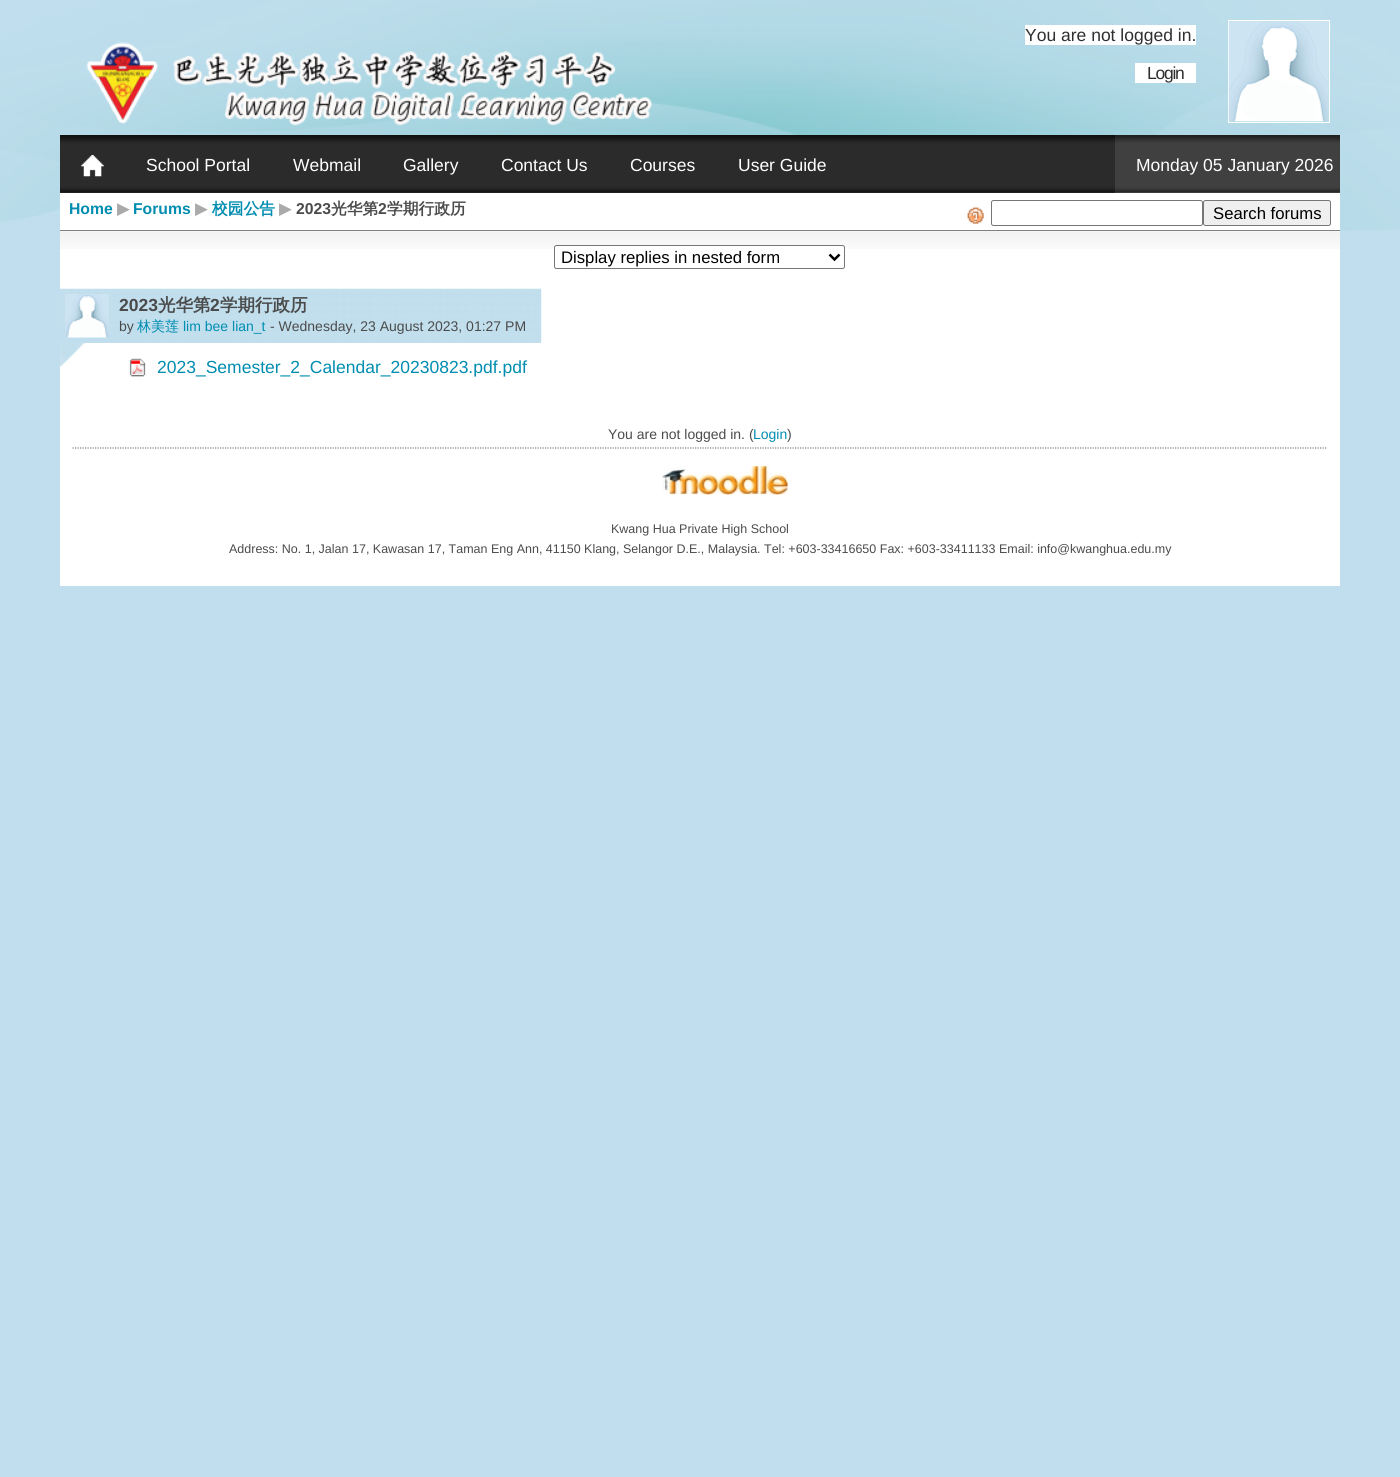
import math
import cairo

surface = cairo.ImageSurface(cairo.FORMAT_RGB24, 1400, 1477)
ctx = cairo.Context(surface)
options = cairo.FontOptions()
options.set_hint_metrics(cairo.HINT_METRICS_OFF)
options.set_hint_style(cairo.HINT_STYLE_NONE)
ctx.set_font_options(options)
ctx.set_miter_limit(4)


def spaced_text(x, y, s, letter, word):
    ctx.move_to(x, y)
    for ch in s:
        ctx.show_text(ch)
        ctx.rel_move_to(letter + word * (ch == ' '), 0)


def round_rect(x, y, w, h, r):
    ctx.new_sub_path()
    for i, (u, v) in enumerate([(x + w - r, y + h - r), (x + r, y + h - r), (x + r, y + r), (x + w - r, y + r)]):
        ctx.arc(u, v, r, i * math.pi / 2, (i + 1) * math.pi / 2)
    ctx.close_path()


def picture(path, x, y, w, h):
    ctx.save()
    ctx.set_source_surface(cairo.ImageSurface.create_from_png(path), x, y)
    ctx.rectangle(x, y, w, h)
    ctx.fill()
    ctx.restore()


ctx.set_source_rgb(0.753, 0.871, 0.929)
ctx.paint()
picture("img1.png", 0, 0, 1400, 231)
picture("img2.png", 86, 42, 567, 84)
ctx.set_source_rgb(1, 1, 1)
ctx.rectangle(1025, 25, 171, 20)
ctx.fill()
ctx.select_font_face("Liberation Sans")
ctx.set_font_size(17.5)
ctx.set_source_rgb(0.184, 0.184, 0.184)
ctx.move_to(1025, 41)
ctx.show_text("You are not logged in.")
ctx.rectangle(1228.5, 20.5, 101, 102)
ctx.set_source_rgb(1, 1, 1)
ctx.set_line_width(1)
ctx.stroke()
picture("img3.png", 1228, 21, 101, 101)
ctx.rectangle(1135, 63, 61, 20)
ctx.fill()
ctx.set_source_rgb(0.184, 0.184, 0.184)
spaced_text(1147, 79, "Login", -1.25, 0)
ctx.rectangle(60, 192, 1055, 1)
ctx.fill()
picture("img4.png", 60, 135, 1055, 58)
picture("img5.png", 81, 155, 23, 22)
ctx.set_source_rgb(1, 1, 1)
ctx.move_to(146, 171)
ctx.show_text("School Portal")
ctx.move_to(293, 171)
ctx.show_text("Webmail")
ctx.move_to(403, 171)
ctx.show_text("Gallery")
ctx.move_to(501, 171)
ctx.show_text("Contact Us")
ctx.move_to(630, 171)
ctx.show_text("Courses")
ctx.move_to(738, 171)
ctx.show_text("User Guide")
ctx.set_source_rgb(0.333, 0.333, 0.333)
ctx.rectangle(1115, 192, 225, 1)
ctx.fill()
picture("img6.png", 1115, 135, 225, 58)
ctx.set_source_rgb(1, 1, 1)
ctx.move_to(1136, 171)
ctx.show_text("Monday 05 January 2026")
ctx.rectangle(60, 193, 1280, 37)
ctx.fill()
ctx.set_source_rgb(0.502, 0.502, 0.502)
ctx.rectangle(60, 230, 1280, 1)
ctx.fill()
ctx.select_font_face("Liberation Sans", cairo.FONT_SLANT_NORMAL, cairo.FONT_WEIGHT_BOLD)
ctx.set_font_size(15.75)
ctx.set_source_rgb(0, 0.553, 0.69)
ctx.move_to(69, 214)
ctx.show_text("Home")
ctx.select_font_face("DejaVu Sans", cairo.FONT_SLANT_NORMAL, cairo.FONT_WEIGHT_BOLD)
ctx.set_source_rgb(0.667, 0.667, 0.667)
ctx.move_to(117, 214)
ctx.show_text("▶")
ctx.select_font_face("Liberation Sans", cairo.FONT_SLANT_NORMAL, cairo.FONT_WEIGHT_BOLD)
ctx.set_source_rgb(0, 0.553, 0.69)
ctx.move_to(133, 214)
ctx.show_text("Forums")
ctx.select_font_face("DejaVu Sans", cairo.FONT_SLANT_NORMAL, cairo.FONT_WEIGHT_BOLD)
ctx.set_source_rgb(0.667, 0.667, 0.667)
ctx.move_to(195, 214)
ctx.show_text("▶")
ctx.select_font_face("WenQuanYi Zen Hei", cairo.FONT_SLANT_NORMAL, cairo.FONT_WEIGHT_BOLD)
ctx.set_source_rgb(0, 0.553, 0.69)
ctx.move_to(212, 214)
ctx.show_text("校园公告")
ctx.select_font_face("DejaVu Sans", cairo.FONT_SLANT_NORMAL, cairo.FONT_WEIGHT_BOLD)
ctx.set_source_rgb(0.667, 0.667, 0.667)
ctx.move_to(279, 214)
ctx.show_text("▶")
ctx.select_font_face("Liberation Sans", cairo.FONT_SLANT_NORMAL, cairo.FONT_WEIGHT_BOLD)
ctx.set_source_rgb(0.294, 0.294, 0.294)
ctx.move_to(296, 214)
ctx.show_text("2023")
ctx.select_font_face("WenQuanYi Zen Hei", cairo.FONT_SLANT_NORMAL, cairo.FONT_WEIGHT_BOLD)
ctx.move_to(331, 214)
ctx.show_text("光华第")
ctx.select_font_face("Liberation Sans", cairo.FONT_SLANT_NORMAL, cairo.FONT_WEIGHT_BOLD)
ctx.move_to(378, 214)
ctx.show_text("2")
ctx.select_font_face("WenQuanYi Zen Hei", cairo.FONT_SLANT_NORMAL, cairo.FONT_WEIGHT_BOLD)
ctx.move_to(387, 214)
ctx.show_text("学期行政历")
picture("img7.png", 967, 207, 17, 17)
round_rect(991.5, 200.5, 211, 25, 2)
ctx.set_source_rgb(0.463, 0.463, 0.463)
ctx.stroke()
ctx.set_source_rgb(0.937, 0.937, 0.937)
round_rect(1203.5, 200.5, 127, 25, 2)
ctx.fill_preserve()
ctx.set_source_rgb(0.463, 0.463, 0.463)
ctx.stroke()
ctx.select_font_face("Liberation Sans")
ctx.set_font_size(16.7)
ctx.set_source_rgb(0, 0, 0)
ctx.move_to(1213, 219)
ctx.show_text("Search forums")
ctx.set_source_rgb(1, 1, 1)
ctx.rectangle(60, 231, 1280, 355)
ctx.fill()
picture("img8.png", 60, 231, 1280, 18)
round_rect(554.5, 245.5, 290, 23, 2)
ctx.fill_preserve()
ctx.set_source_rgb(0.463, 0.463, 0.463)
ctx.stroke()
ctx.new_path()
ctx.move_to(829.5, 254.5)
ctx.line_to(834.5, 259.5)
ctx.line_to(839.5, 254.5)
ctx.set_source_rgb(0, 0, 0)
ctx.set_line_width(2.5)
ctx.stroke()
ctx.move_to(561, 263)
ctx.show_text("Display replies in nested form")
ctx.set_source_rgb(0.753, 0.871, 0.929)
ctx.rectangle(60, 289, 54, 54)
ctx.fill()
picture("img9.png", 60, 288, 54, 46)
picture("img10.png", 65, 294, 44, 44)
ctx.rectangle(114, 342, 427, 1)
ctx.fill()
picture("img11.png", 114, 288, 428, 55)
ctx.select_font_face("Liberation Sans", cairo.FONT_SLANT_NORMAL, cairo.FONT_WEIGHT_BOLD)
ctx.set_font_size(17.5)
ctx.set_source_rgb(0.294, 0.294, 0.294)
ctx.move_to(119, 311)
ctx.show_text("2023")
ctx.select_font_face("WenQuanYi Zen Hei", cairo.FONT_SLANT_NORMAL, cairo.FONT_WEIGHT_BOLD)
ctx.move_to(158, 311)
ctx.show_text("光华第")
ctx.select_font_face("Liberation Sans", cairo.FONT_SLANT_NORMAL, cairo.FONT_WEIGHT_BOLD)
ctx.move_to(210, 311)
ctx.show_text("2")
ctx.select_font_face("WenQuanYi Zen Hei", cairo.FONT_SLANT_NORMAL, cairo.FONT_WEIGHT_BOLD)
ctx.move_to(220, 311)
ctx.show_text("学期行政历")
ctx.select_font_face("Liberation Sans")
ctx.set_font_size(14)
ctx.move_to(119, 331)
ctx.show_text("by")
ctx.select_font_face("WenQuanYi Zen Hei Medium")
ctx.set_source_rgb(0, 0.553, 0.69)
ctx.move_to(137, 331)
ctx.show_text("林美莲")
ctx.select_font_face("Liberation Sans")
ctx.move_to(183, 331)
ctx.show_text("lim bee lian_t")
ctx.set_source_rgb(0.294, 0.294, 0.294)
ctx.move_to(270, 331)
ctx.show_text("- Wednesday, 23 August 2023, 01:27 PM")
picture("img12.png", 60, 342, 25, 25)
picture("img13.png", 129, 358, 17, 19)
ctx.set_font_size(17.5)
ctx.set_source_rgb(0, 0.553, 0.69)
ctx.move_to(157, 373)
ctx.show_text("2023_Semester_2_Calendar_20230823.pdf.pdf")
ctx.set_font_size(14)
ctx.set_source_rgb(0.294, 0.294, 0.294)
ctx.move_to(608, 439)
ctx.show_text("You are not logged in. (")
ctx.set_source_rgb(0, 0.553, 0.69)
ctx.move_to(753, 439)
ctx.show_text("Login")
ctx.set_source_rgb(0.294, 0.294, 0.294)
ctx.move_to(787, 439)
ctx.show_text(")")
ctx.new_path()
ctx.move_to(72.5, 448)
ctx.line_to(1327.5, 448)
ctx.set_source_rgb(0.502, 0.502, 0.502)
ctx.set_line_width(1.2)
ctx.set_dash([1.25, 1.25])
ctx.stroke()
picture("img14.png", 662, 466, 126, 29)
ctx.set_font_size(12.5)
ctx.set_source_rgb(0.294, 0.294, 0.294)
ctx.move_to(611, 533)
ctx.show_text("Kwang Hua Private High School")
ctx.move_to(229, 553)
ctx.show_text("Address: No. 1, Jalan 17, Kawasan 17, Taman Eng Ann, 41150 Klang, Selangor D.E., Malaysia. Tel: +603-33416650 Fax: +603-33411133 Email: info@kwanghua.edu.my")
surface.write_to_png("page.png")
